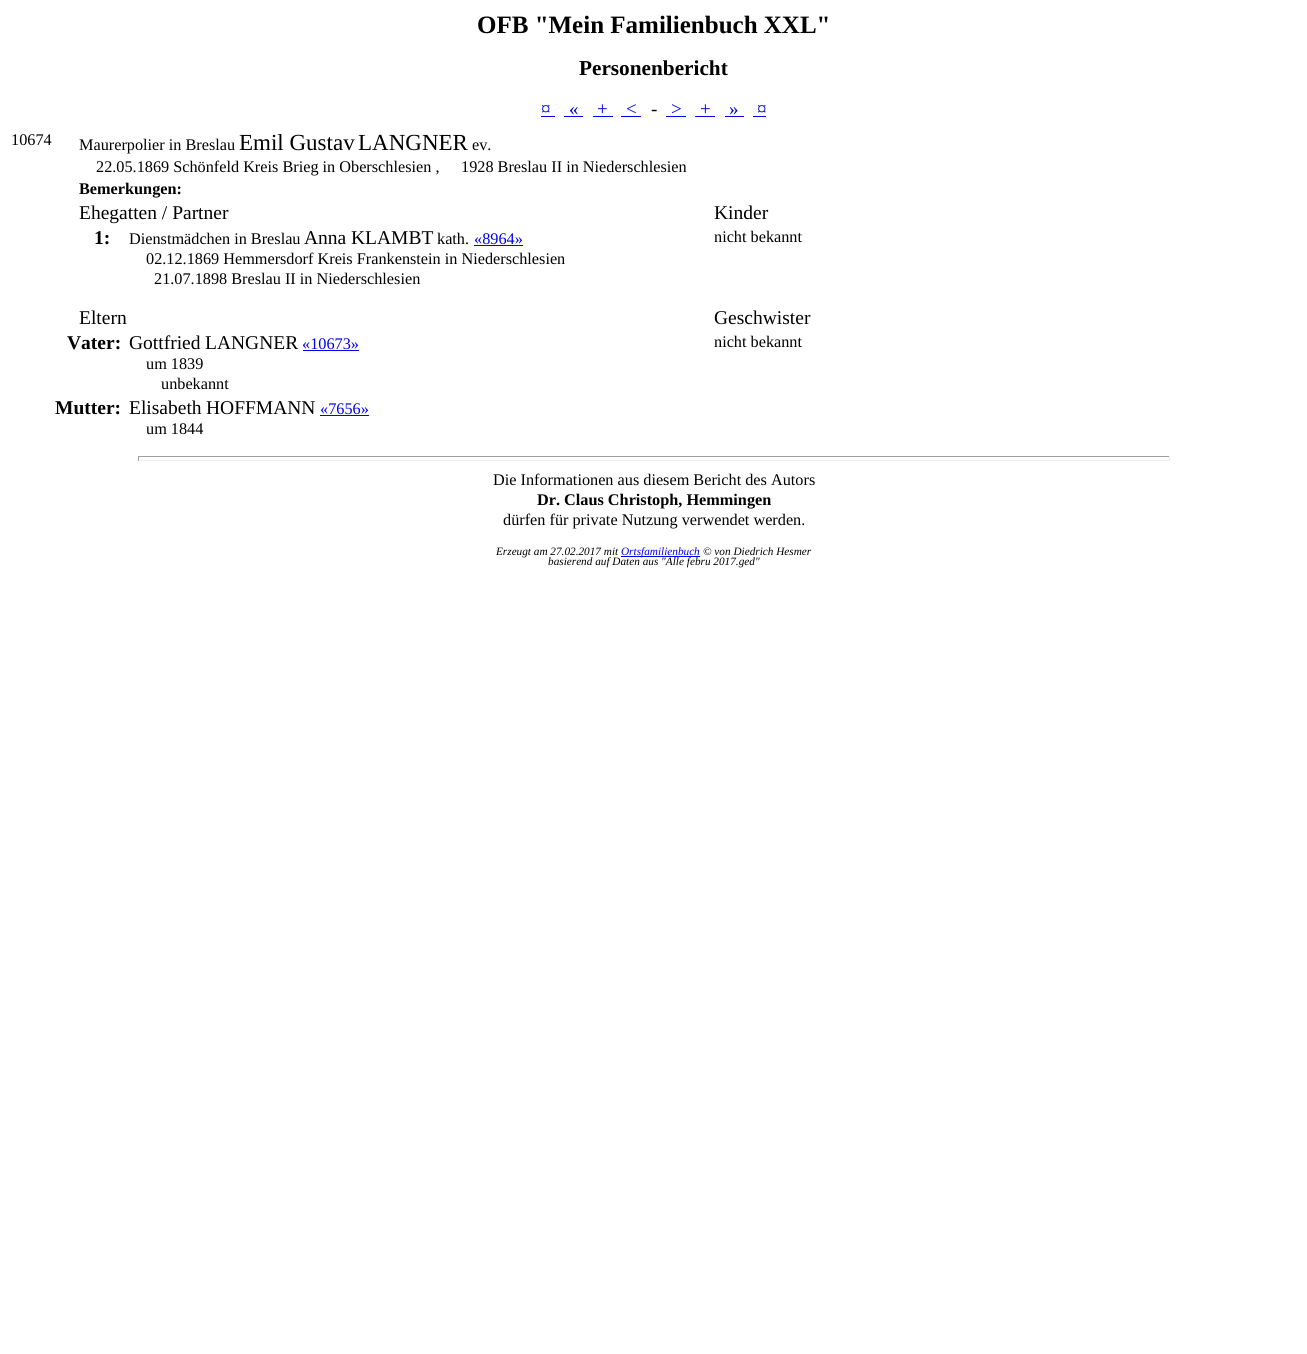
import math
import cairo

surface = cairo.ImageSurface(cairo.FORMAT_RGB24, 1307, 1354)
ctx = cairo.Context(surface)
options = cairo.FontOptions()
options.set_hint_metrics(cairo.HINT_METRICS_OFF)
options.set_hint_style(cairo.HINT_STYLE_NONE)
ctx.set_font_options(options)
ctx.set_miter_limit(4)


ctx.set_source_rgb(1, 1, 1)
ctx.paint()
ctx.select_font_face("Liberation Serif", cairo.FONT_SLANT_NORMAL, cairo.FONT_WEIGHT_BOLD)
ctx.set_font_size(25)
ctx.set_source_rgb(0, 0, 0)
ctx.move_to(477, 33)
ctx.show_text("OFB \"Mein Familienbuch XXL\"")
ctx.set_font_size(21.25)
ctx.move_to(579, 75)
ctx.show_text("Personenbericht")
ctx.select_font_face("Liberation Serif")
ctx.set_font_size(19)
ctx.set_source_rgb(0, 0, 0.933)
ctx.move_to(541, 115)
ctx.show_text("¤")
ctx.rectangle(541, 116, 14, 1)
ctx.fill()
ctx.move_to(569, 115)
ctx.show_text("«")
ctx.rectangle(564, 116, 19, 1)
ctx.fill()
ctx.move_to(597, 115)
ctx.show_text("+")
ctx.rectangle(593, 116, 20, 1)
ctx.fill()
ctx.move_to(626, 115)
ctx.show_text("<")
ctx.rectangle(621, 116, 20, 1)
ctx.fill()
ctx.set_source_rgb(0, 0, 0)
ctx.move_to(651, 115)
ctx.show_text("-")
ctx.set_source_rgb(0, 0, 0.933)
ctx.move_to(671, 115)
ctx.show_text(">")
ctx.rectangle(666, 116, 20, 1)
ctx.fill()
ctx.move_to(700, 115)
ctx.show_text("+")
ctx.rectangle(695, 116, 20, 1)
ctx.fill()
ctx.move_to(729, 115)
ctx.show_text("»")
ctx.rectangle(725, 116, 19, 1)
ctx.fill()
ctx.move_to(757, 115)
ctx.show_text("¤")
ctx.rectangle(753, 116, 13, 1)
ctx.fill()
ctx.set_font_size(16.25)
ctx.set_source_rgb(0, 0, 0)
ctx.move_to(11, 145)
ctx.show_text("10674")
ctx.move_to(79, 150)
ctx.show_text("Maurerpolier in Breslau")
ctx.set_font_size(23)
ctx.move_to(239, 150)
ctx.show_text("Emil Gustav")
ctx.move_to(358, 150)
ctx.show_text("LANGNER")
ctx.set_font_size(16.25)
ctx.move_to(472, 150)
ctx.show_text("ev.")
ctx.move_to(96, 172)
ctx.show_text("22.05.1869 Schönfeld Kreis Brieg in Oberschlesien ,")
ctx.move_to(461, 172)
ctx.show_text("1928 Breslau II in Niederschlesien")
ctx.select_font_face("Liberation Serif", cairo.FONT_SLANT_NORMAL, cairo.FONT_WEIGHT_BOLD)
ctx.move_to(79, 194)
ctx.show_text("Bemerkungen:")
ctx.select_font_face("Liberation Serif")
ctx.set_font_size(19.5)
ctx.move_to(79, 219)
ctx.show_text("Ehegatten / Partner")
ctx.move_to(714, 219)
ctx.show_text("Kinder")
ctx.select_font_face("Liberation Serif", cairo.FONT_SLANT_NORMAL, cairo.FONT_WEIGHT_BOLD)
ctx.move_to(94, 244)
ctx.show_text("1:")
ctx.select_font_face("Liberation Serif")
ctx.set_font_size(16.25)
ctx.move_to(129, 244)
ctx.show_text("Dienstmädchen in Breslau")
ctx.set_font_size(19.5)
ctx.move_to(304, 244)
ctx.show_text("Anna")
ctx.move_to(351, 244)
ctx.show_text("KLAMBT")
ctx.set_font_size(16.25)
ctx.move_to(437, 244)
ctx.show_text("kath.")
ctx.set_source_rgb(0, 0, 0.933)
ctx.move_to(474, 244)
ctx.show_text("«8964»")
ctx.rectangle(474, 245, 49, 1)
ctx.fill()
ctx.set_source_rgb(0, 0, 0)
ctx.move_to(146, 264)
ctx.show_text("02.12.1869 Hemmersdorf Kreis Frankenstein in Niederschlesien")
ctx.move_to(154, 284)
ctx.show_text("21.07.1898 Breslau II in Niederschlesien")
ctx.move_to(714, 242)
ctx.show_text("nicht bekannt")
ctx.set_font_size(19.5)
ctx.move_to(79, 324)
ctx.show_text("Eltern")
ctx.move_to(714, 324)
ctx.show_text("Geschwister")
ctx.select_font_face("Liberation Serif", cairo.FONT_SLANT_NORMAL, cairo.FONT_WEIGHT_BOLD)
ctx.move_to(67, 349)
ctx.show_text("Vater:")
ctx.select_font_face("Liberation Serif")
ctx.move_to(129, 349)
ctx.show_text("Gottfried")
ctx.move_to(205, 349)
ctx.show_text("LANGNER")
ctx.set_font_size(16.25)
ctx.set_source_rgb(0, 0, 0.933)
ctx.move_to(302, 349)
ctx.show_text("«10673»")
ctx.rectangle(303, 350, 56, 1)
ctx.fill()
ctx.set_source_rgb(0, 0, 0)
ctx.move_to(146, 369)
ctx.show_text("um 1839")
ctx.move_to(161, 389)
ctx.show_text("unbekannt")
ctx.move_to(714, 347)
ctx.show_text("nicht bekannt")
ctx.select_font_face("Liberation Serif", cairo.FONT_SLANT_NORMAL, cairo.FONT_WEIGHT_BOLD)
ctx.set_font_size(19.5)
ctx.move_to(55, 414)
ctx.show_text("Mutter:")
ctx.select_font_face("Liberation Serif")
ctx.move_to(129, 414)
ctx.show_text("Elisabeth")
ctx.move_to(206, 414)
ctx.show_text("HOFFMANN")
ctx.set_font_size(16.25)
ctx.set_source_rgb(0, 0, 0.933)
ctx.move_to(320, 414)
ctx.show_text("«7656»")
ctx.rectangle(320, 415, 49, 1)
ctx.fill()
ctx.set_source_rgb(0, 0, 0)
ctx.move_to(146, 434)
ctx.show_text("um 1844")
ctx.set_source_rgb(0.624, 0.624, 0.624)
ctx.rectangle(138, 456, 1032, 1)
ctx.fill()
ctx.set_source_rgb(0.933, 0.933, 0.933)
ctx.rectangle(1169, 456, 1, 5)
ctx.fill()
ctx.rectangle(138, 460, 1032, 1)
ctx.fill()
ctx.set_source_rgb(0.624, 0.624, 0.624)
ctx.rectangle(138, 456, 1, 5)
ctx.fill()
ctx.set_source_rgb(0, 0, 0)
ctx.move_to(493, 485)
ctx.show_text("Die Informationen aus diesem Bericht des Autors")
ctx.select_font_face("Liberation Serif", cairo.FONT_SLANT_NORMAL, cairo.FONT_WEIGHT_BOLD)
ctx.move_to(537, 505)
ctx.show_text("Dr. Claus Christoph, Hemmingen")
ctx.select_font_face("Liberation Serif")
ctx.move_to(503, 525)
ctx.show_text("dürfen für private Nutzung verwendet werden.")
ctx.select_font_face("Liberation Serif", cairo.FONT_SLANT_ITALIC)
ctx.set_font_size(11.25)
ctx.move_to(496, 555)
ctx.show_text("Erzeugt am 27.02.2017 mit")
ctx.set_source_rgb(0, 0, 0.933)
ctx.rectangle(621, 556, 79, 1)
ctx.fill()
ctx.move_to(621, 555)
ctx.show_text("Ortsfamilienbuch")
ctx.set_source_rgb(0, 0, 0)
ctx.move_to(703, 555)
ctx.show_text("© von Diedrich Hesmer")
ctx.move_to(548, 565)
ctx.show_text("basierend auf Daten aus \"Alle febru 2017.ged\"")
surface.write_to_png("page.png")
